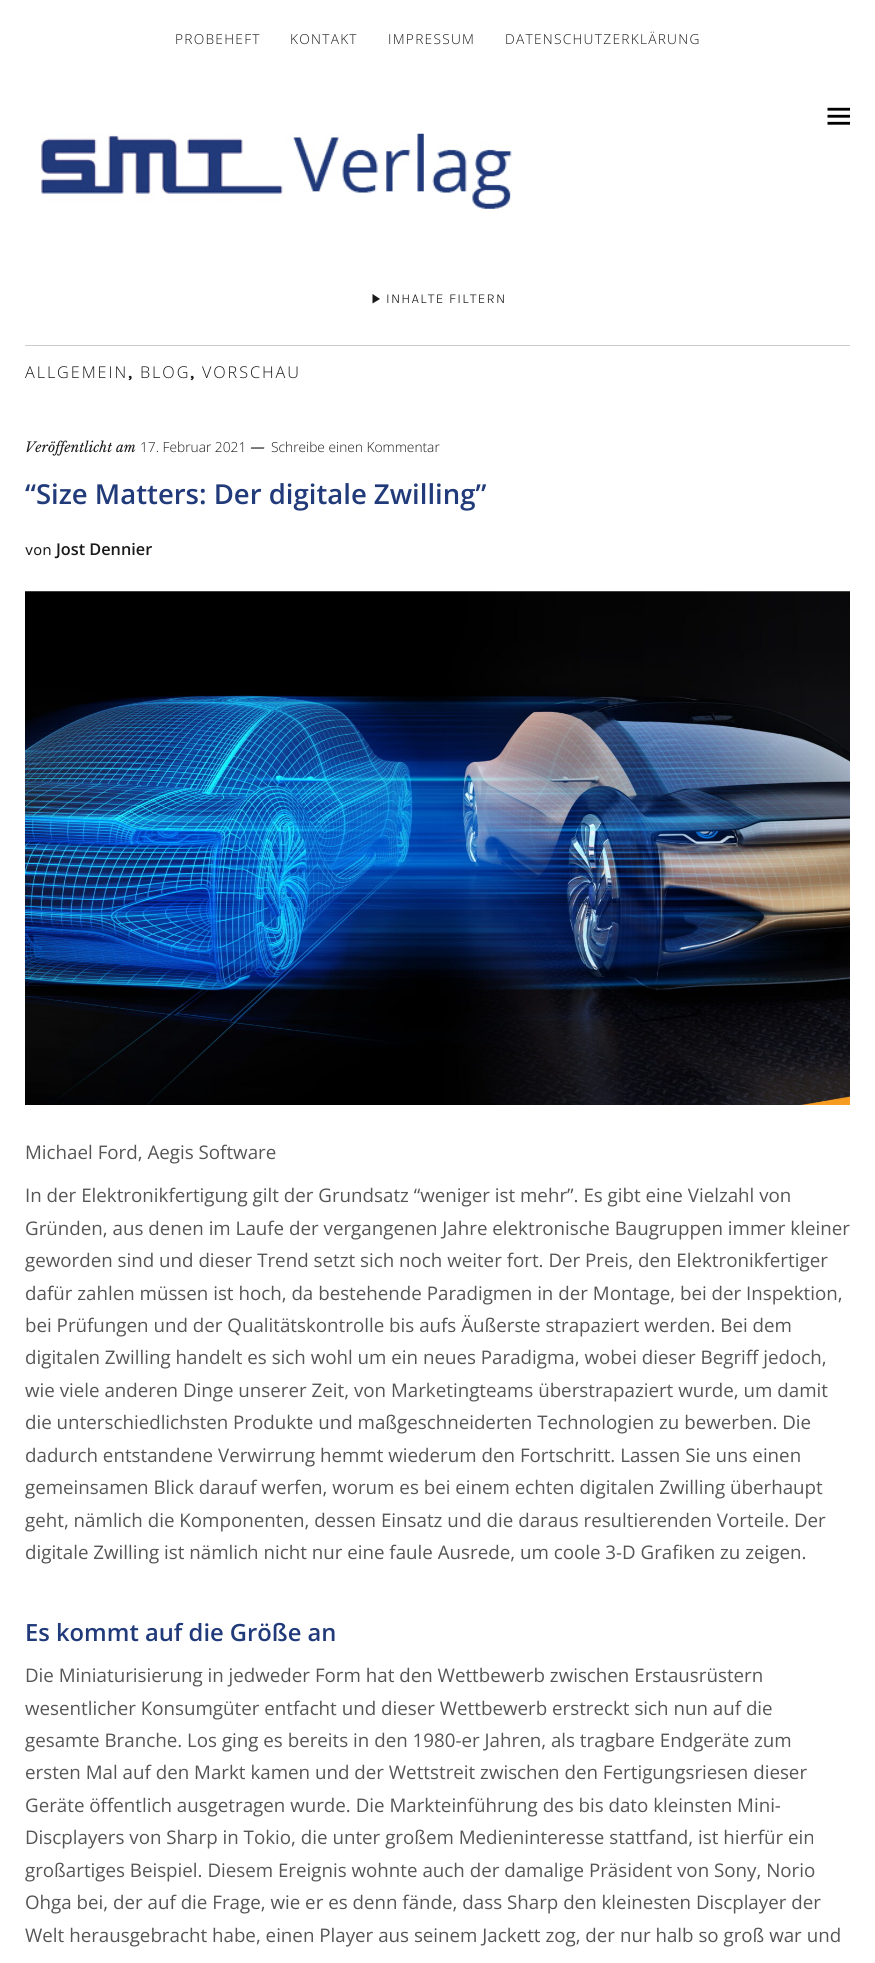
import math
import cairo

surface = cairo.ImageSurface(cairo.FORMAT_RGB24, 875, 1963)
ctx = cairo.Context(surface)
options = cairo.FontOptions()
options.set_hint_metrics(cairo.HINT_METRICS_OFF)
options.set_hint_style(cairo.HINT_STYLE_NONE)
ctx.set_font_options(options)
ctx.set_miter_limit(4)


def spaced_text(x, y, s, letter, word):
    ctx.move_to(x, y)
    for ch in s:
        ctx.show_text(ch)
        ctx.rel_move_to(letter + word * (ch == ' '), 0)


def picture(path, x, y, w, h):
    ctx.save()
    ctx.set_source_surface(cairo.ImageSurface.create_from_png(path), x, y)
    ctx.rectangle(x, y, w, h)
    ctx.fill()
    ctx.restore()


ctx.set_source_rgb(1, 1, 1)
ctx.paint()
ctx.select_font_face("Open Sans Light")
ctx.set_font_size(13.75)
ctx.set_source_rgb(0.098, 0.098, 0.098)
spaced_text(175, 44, "PROBEHEFT", 1.25, 0)
spaced_text(290, 44, "KONTAKT", 1.25, 0)
spaced_text(388, 44, "IMPRESSUM", 1.25, 0)
spaced_text(505, 44, "DATENSCHUTZERKLÄRUNG", 1.25, 0)
picture("img1.png", 827, 107, 23, 18)
picture("img2.png", 41, 133, 471, 76)
ctx.new_path()
ctx.move_to(372.5, 294)
ctx.line_to(380, 299)
ctx.line_to(372.5, 303.5)
ctx.close_path()
ctx.fill()
ctx.select_font_face("Karla Light")
spaced_text(386, 303, "INHALTE FILTERN", 1.25, 0)
ctx.set_source_rgb(0.8, 0.8, 0.8)
ctx.rectangle(25, 345, 825, 1)
ctx.fill()
ctx.select_font_face("Open Sans Light")
ctx.set_font_size(16.25)
ctx.set_source_rgb(0.098, 0.098, 0.098)
spaced_text(25, 378, "ALLGEMEIN", 1.9, 0)
ctx.select_font_face("Karla", cairo.FONT_SLANT_NORMAL, cairo.FONT_WEIGHT_BOLD)
spaced_text(128, 378, ",", 1.9, 0)
ctx.select_font_face("Open Sans Light")
spaced_text(140, 378, "BLOG", 1.9, 0)
ctx.select_font_face("Karla", cairo.FONT_SLANT_NORMAL, cairo.FONT_WEIGHT_BOLD)
spaced_text(190, 378, ",", 1.9, 0)
ctx.select_font_face("Open Sans Light")
spaced_text(202, 378, "VORSCHAU", 1.9, 0)
ctx.select_font_face("Libre Baskerville", cairo.FONT_SLANT_ITALIC)
ctx.set_font_size(13.75)
ctx.move_to(25, 452)
ctx.show_text("Veröffentlicht am")
ctx.select_font_face("Open Sans Light")
ctx.move_to(140, 452)
ctx.show_text("17. Februar 2021")
ctx.select_font_face("Libre Baskerville", cairo.FONT_SLANT_ITALIC)
ctx.move_to(250, 452)
ctx.show_text("—")
ctx.select_font_face("Open Sans Light")
ctx.move_to(271, 452)
ctx.show_text("Schreibe einen Kommentar")
ctx.select_font_face("Open Sans SemiBold")
ctx.set_font_size(27.5)
ctx.set_source_rgb(0.129, 0.227, 0.478)
ctx.move_to(25, 504)
ctx.show_text("“Size Matters: Der digitale Zwilling”")
ctx.select_font_face("Karla")
ctx.set_font_size(16.25)
ctx.set_source_rgb(0.098, 0.098, 0.098)
ctx.move_to(25, 555)
ctx.show_text("von")
ctx.select_font_face("Open Sans SemiBold")
ctx.move_to(56, 555)
ctx.show_text("Jost Dennier")
picture("img3.png", 25, 591, 825, 514)
ctx.select_font_face("Open Sans")
ctx.set_font_size(18.75)
ctx.set_source_rgb(0.337, 0.337, 0.337)
ctx.move_to(25, 1159)
ctx.show_text("Michael Ford, Aegis Software")
ctx.move_to(25, 1202)
ctx.show_text("In der Elektronikfertigung gilt der Grundsatz “weniger ist mehr”. Es gibt eine Vielzahl von")
ctx.move_to(25, 1235)
ctx.show_text("Gründen, aus denen im Laufe der vergangenen Jahre elektronische Baugruppen immer kleiner")
ctx.move_to(25, 1267)
ctx.show_text("geworden sind und dieser Trend setzt sich noch weiter fort. Der Preis, den Elektronikfertiger")
ctx.move_to(25, 1300)
ctx.show_text("dafür zahlen müssen ist hoch, da bestehende Paradigmen in der Montage, bei der Inspektion,")
ctx.move_to(25, 1332)
ctx.show_text("bei Prüfungen und der Qualitätskontrolle bis aufs Äußerste strapaziert werden. Bei dem")
ctx.move_to(25, 1364)
ctx.show_text("digitalen Zwilling handelt es sich wohl um ein neues Paradigma, wobei dieser Begriff jedoch,")
ctx.move_to(25, 1397)
ctx.show_text("wie viele anderen Dinge unserer Zeit, von Marketingteams überstrapaziert wurde, um damit")
ctx.move_to(25, 1429)
ctx.show_text("die unterschiedlichsten Produkte und maßgeschneiderten Technologien zu bewerben. Die")
ctx.move_to(25, 1462)
ctx.show_text("dadurch entstandene Verwirrung hemmt wiederum den Fortschritt. Lassen Sie uns einen")
ctx.move_to(25, 1494)
ctx.show_text("gemeinsamen Blick darauf werfen, worum es bei einem echten digitalen Zwilling überhaupt")
ctx.move_to(25, 1527)
ctx.show_text("geht, nämlich die Komponenten, dessen Einsatz und die daraus resultierenden Vorteile. Der")
ctx.move_to(25, 1559)
ctx.show_text("digitale Zwilling ist nämlich nicht nur eine faule Ausrede, um coole 3-D Grafiken zu zeigen.")
ctx.select_font_face("Open Sans SemiBold")
ctx.set_font_size(23.75)
ctx.set_source_rgb(0.129, 0.227, 0.478)
ctx.move_to(25, 1641)
ctx.show_text("Es kommt auf die Größe an")
ctx.select_font_face("Open Sans")
ctx.set_font_size(18.75)
ctx.set_source_rgb(0.337, 0.337, 0.337)
ctx.move_to(25, 1682)
ctx.show_text("Die Miniaturisierung in jedweder Form hat den Wettbewerb zwischen Erstausrüstern")
ctx.move_to(25, 1715)
ctx.show_text("wesentlicher Konsumgüter entfacht und dieser Wettbewerb erstreckt sich nun auf die")
ctx.move_to(25, 1747)
ctx.show_text("gesamte Branche. Los ging es bereits in den 1980-er Jahren, als tragbare Endgeräte zum")
ctx.move_to(25, 1779)
ctx.show_text("ersten Mal auf den Markt kamen und der Wettstreit zwischen den Fertigungsriesen dieser")
ctx.move_to(25, 1812)
ctx.show_text("Geräte öffentlich ausgetragen wurde. Die Markteinführung des bis dato kleinsten Mini-")
ctx.move_to(25, 1844)
ctx.show_text("Discplayers von Sharp in Tokio, die unter großem Medieninteresse stattfand, ist hierfür ein")
ctx.move_to(25, 1877)
ctx.show_text("großartiges Beispiel. Diesem Ereignis wohnte auch der damalige Präsident von Sony, Norio")
ctx.move_to(25, 1909)
ctx.show_text("Ohga bei, der auf die Frage, wie er es denn fände, dass Sharp den kleinesten Discplayer der")
ctx.move_to(25, 1942)
ctx.show_text("Welt herausgebracht habe, einen Player aus seinem Jackett zog, der nur halb so groß war und")
surface.write_to_png("page.png")
